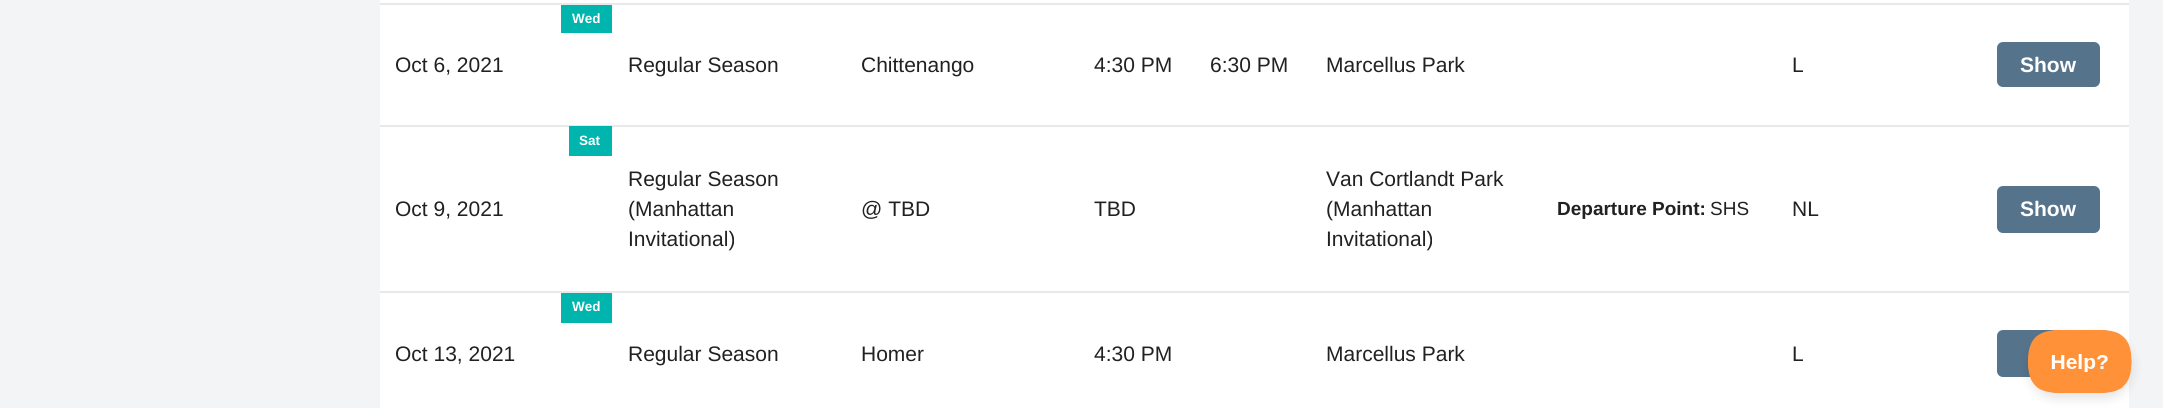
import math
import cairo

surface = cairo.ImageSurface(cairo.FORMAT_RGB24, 2163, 408)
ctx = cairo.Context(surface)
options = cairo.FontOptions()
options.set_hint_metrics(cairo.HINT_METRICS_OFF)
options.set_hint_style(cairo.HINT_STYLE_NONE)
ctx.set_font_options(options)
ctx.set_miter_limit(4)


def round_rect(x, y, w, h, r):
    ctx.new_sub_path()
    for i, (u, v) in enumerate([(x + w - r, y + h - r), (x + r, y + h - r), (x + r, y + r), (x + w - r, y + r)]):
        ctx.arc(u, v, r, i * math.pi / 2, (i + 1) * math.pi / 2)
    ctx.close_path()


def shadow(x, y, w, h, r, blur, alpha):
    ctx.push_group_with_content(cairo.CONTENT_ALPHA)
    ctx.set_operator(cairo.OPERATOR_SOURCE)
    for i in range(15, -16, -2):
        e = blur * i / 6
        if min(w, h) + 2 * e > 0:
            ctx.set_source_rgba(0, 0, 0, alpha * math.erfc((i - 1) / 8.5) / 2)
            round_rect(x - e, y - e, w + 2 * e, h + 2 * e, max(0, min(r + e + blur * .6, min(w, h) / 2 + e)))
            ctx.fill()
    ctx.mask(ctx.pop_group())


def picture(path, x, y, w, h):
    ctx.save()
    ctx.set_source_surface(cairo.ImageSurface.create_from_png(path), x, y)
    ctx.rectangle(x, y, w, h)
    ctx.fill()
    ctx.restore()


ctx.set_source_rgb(0.953, 0.957, 0.961)
ctx.paint()
ctx.set_source_rgb(1, 1, 1)
ctx.rectangle(380, 0, 1749, 408)
ctx.fill()
ctx.set_source_rgb(0.914, 0.914, 0.914)
ctx.rectangle(380, 3, 1749, 2)
ctx.fill()
ctx.set_source_rgb(0, 0.71, 0.678)
ctx.rectangle(561, 5, 51, 28)
ctx.fill()
ctx.select_font_face("Liberation Sans", cairo.FONT_SLANT_NORMAL, cairo.FONT_WEIGHT_BOLD)
ctx.set_font_size(13.5)
ctx.set_source_rgb(1, 1, 1)
ctx.move_to(572, 23)
ctx.show_text("Wed")
ctx.select_font_face("Liberation Sans")
ctx.set_font_size(21)
ctx.set_source_rgb(0.129, 0.129, 0.129)
ctx.move_to(395, 72)
ctx.show_text("Oct 6, 2021")
ctx.move_to(628, 72)
ctx.show_text("Regular Season")
ctx.move_to(861, 72)
ctx.show_text("Chittenango")
ctx.move_to(1094, 72)
ctx.show_text("4:30 PM")
ctx.move_to(1210, 72)
ctx.show_text("6:30 PM")
ctx.move_to(1326, 72)
ctx.show_text("Marcellus Park")
ctx.move_to(1792, 72)
ctx.show_text("L")
ctx.set_source_rgb(0.333, 0.451, 0.545)
round_rect(1997, 42, 103, 45, 6)
ctx.fill()
ctx.select_font_face("Liberation Sans", cairo.FONT_SLANT_NORMAL, cairo.FONT_WEIGHT_BOLD)
ctx.set_source_rgb(1, 1, 1)
ctx.move_to(2020, 72)
ctx.show_text("Show")
ctx.set_source_rgb(0.914, 0.914, 0.914)
ctx.rectangle(380, 125, 1749, 2)
ctx.fill()
ctx.set_source_rgb(0, 0.71, 0.678)
ctx.rectangle(569, 126, 43, 30)
ctx.fill()
ctx.set_font_size(13.5)
ctx.set_source_rgb(1, 1, 1)
ctx.move_to(579, 145)
ctx.show_text("Sat")
ctx.select_font_face("Liberation Sans")
ctx.set_font_size(21)
ctx.set_source_rgb(0.129, 0.129, 0.129)
ctx.move_to(395, 216)
ctx.show_text("Oct 9, 2021")
ctx.move_to(628, 186)
ctx.show_text("Regular Season")
ctx.move_to(628, 216)
ctx.show_text("(Manhattan")
ctx.move_to(628, 246)
ctx.show_text("Invitational)")
ctx.move_to(861, 216)
ctx.show_text("@ TBD")
ctx.move_to(1094, 216)
ctx.show_text("TBD")
ctx.move_to(1326, 186)
ctx.show_text("Van Cortlandt Park")
ctx.move_to(1326, 216)
ctx.show_text("(Manhattan")
ctx.move_to(1326, 246)
ctx.show_text("Invitational)")
ctx.select_font_face("Liberation Sans", cairo.FONT_SLANT_NORMAL, cairo.FONT_WEIGHT_BOLD)
ctx.set_font_size(19)
ctx.move_to(1557, 215)
ctx.show_text("Departure Point:")
ctx.select_font_face("Liberation Sans")
ctx.move_to(1710, 215)
ctx.show_text("SHS")
ctx.set_font_size(21)
ctx.move_to(1792, 216)
ctx.show_text("NL")
ctx.set_source_rgb(0.333, 0.451, 0.545)
round_rect(1997, 186, 103, 47, 6)
ctx.fill()
ctx.select_font_face("Liberation Sans", cairo.FONT_SLANT_NORMAL, cairo.FONT_WEIGHT_BOLD)
ctx.set_source_rgb(1, 1, 1)
ctx.move_to(2020, 216)
ctx.show_text("Show")
ctx.set_source_rgb(0.914, 0.914, 0.914)
ctx.rectangle(380, 291, 1749, 2)
ctx.fill()
ctx.set_source_rgb(0, 0.71, 0.678)
ctx.rectangle(561, 293, 51, 30)
ctx.fill()
ctx.set_font_size(13.5)
ctx.set_source_rgb(1, 1, 1)
ctx.move_to(572, 311)
ctx.show_text("Wed")
ctx.select_font_face("Liberation Sans")
ctx.set_font_size(21)
ctx.set_source_rgb(0.129, 0.129, 0.129)
ctx.move_to(395, 361)
ctx.show_text("Oct 13, 2021")
ctx.move_to(628, 361)
ctx.show_text("Regular Season")
ctx.move_to(861, 361)
ctx.show_text("Homer")
ctx.move_to(1094, 361)
ctx.show_text("4:30 PM")
ctx.move_to(1326, 361)
ctx.show_text("Marcellus Park")
ctx.move_to(1792, 361)
ctx.show_text("L")
ctx.set_source_rgb(0.333, 0.451, 0.545)
round_rect(1997, 330, 103, 47, 6)
ctx.fill()
ctx.set_source_rgb(0, 0, 0)
shadow(2028, 336, 105, 63, 31.5, 5, 0.1)
picture("img1.png", 2028, 330, 104, 63)
surface.write_to_png("page.png")
